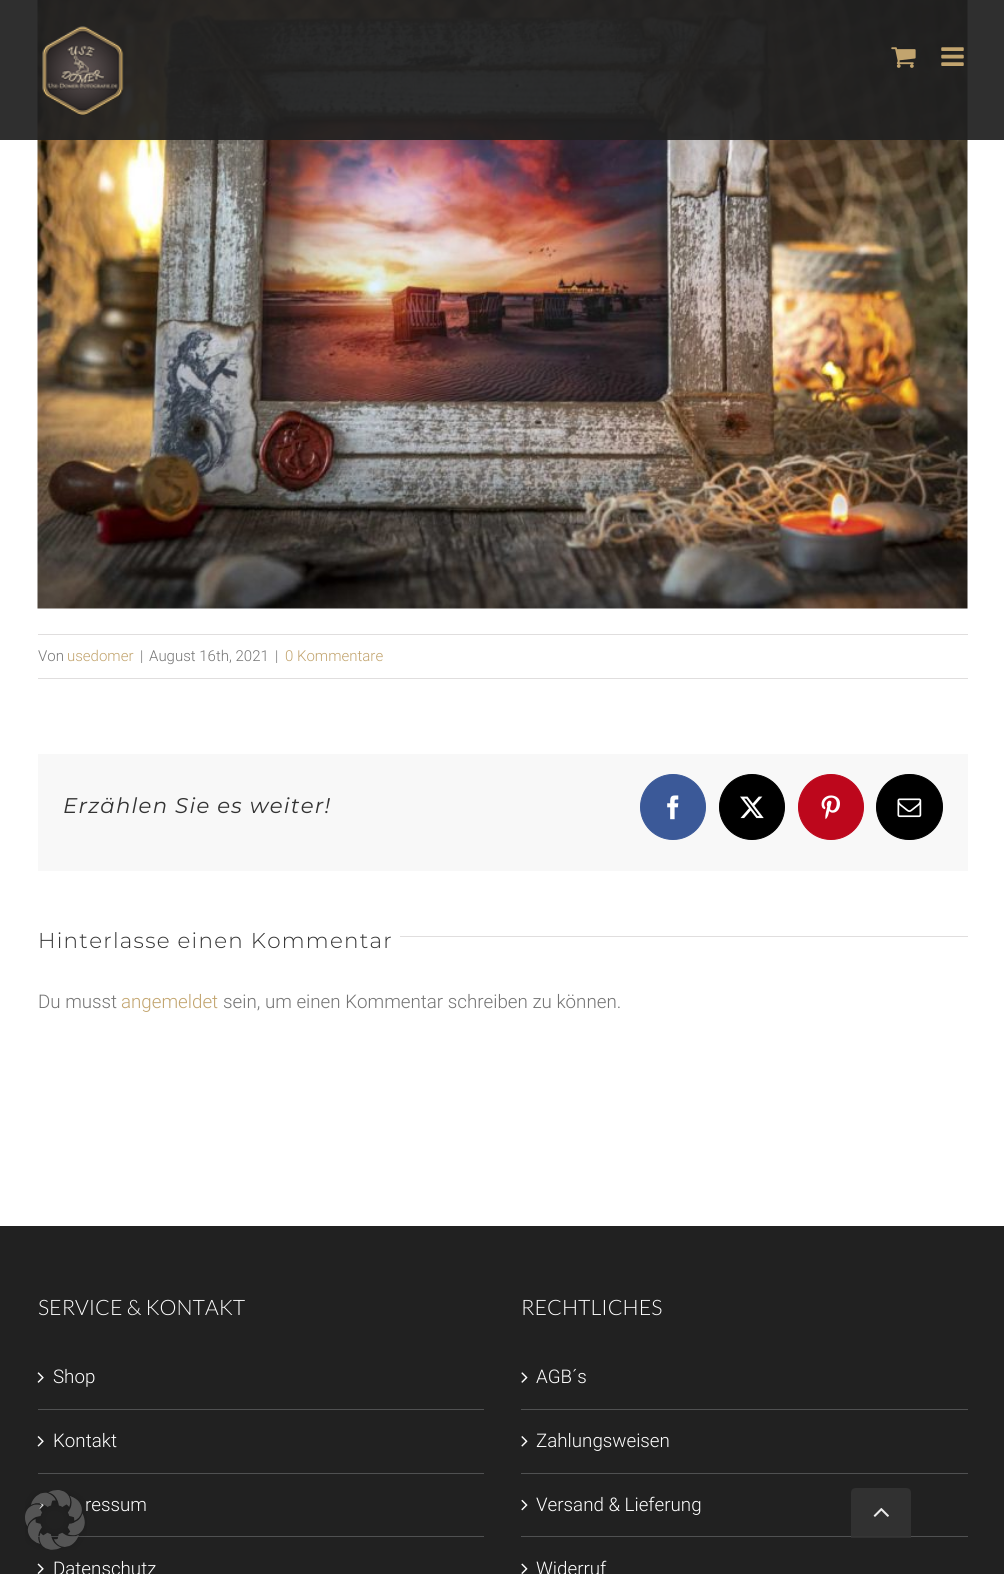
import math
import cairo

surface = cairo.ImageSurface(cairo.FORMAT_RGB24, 1004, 1574)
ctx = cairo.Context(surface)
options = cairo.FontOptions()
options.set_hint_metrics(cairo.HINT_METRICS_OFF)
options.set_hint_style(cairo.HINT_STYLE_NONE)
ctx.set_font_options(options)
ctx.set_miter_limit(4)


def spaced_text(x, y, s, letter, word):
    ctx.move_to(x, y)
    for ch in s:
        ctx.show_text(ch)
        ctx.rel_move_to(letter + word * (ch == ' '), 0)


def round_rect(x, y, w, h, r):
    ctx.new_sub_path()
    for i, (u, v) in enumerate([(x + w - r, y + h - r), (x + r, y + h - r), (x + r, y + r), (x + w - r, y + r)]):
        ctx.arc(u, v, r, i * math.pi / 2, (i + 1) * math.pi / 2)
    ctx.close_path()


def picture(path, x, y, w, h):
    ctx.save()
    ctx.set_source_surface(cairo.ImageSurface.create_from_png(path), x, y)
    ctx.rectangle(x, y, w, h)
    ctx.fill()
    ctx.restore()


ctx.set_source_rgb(1, 1, 1)
ctx.paint()
picture("img4.png", 37, 0, 931, 609)
ctx.set_source_rgba(0.129, 0.129, 0.129, 0.93)
ctx.rectangle(0, 0, 1004, 140)
ctx.fill()
picture("img1.png", 42, 26, 82, 89)
picture("img2.png", 891, 47, 25, 21)
picture("img3.png", 941, 47, 23, 19)
ctx.set_source_rgb(0.878, 0.871, 0.871)
ctx.rectangle(38, 634, 930, 1)
ctx.fill()
ctx.rectangle(38, 678, 930, 1)
ctx.fill()
ctx.select_font_face("Roboto Light")
ctx.set_font_size(15)
ctx.set_source_rgb(0.455, 0.455, 0.455)
ctx.move_to(38, 661)
ctx.show_text("Von")
ctx.set_source_rgb(0.761, 0.643, 0.431)
ctx.move_to(67, 661)
ctx.show_text("usedomer")
ctx.set_source_rgb(0.455, 0.455, 0.455)
ctx.move_to(140, 661)
ctx.show_text("|")
ctx.move_to(149, 661)
ctx.show_text("August 16th, 2021")
ctx.move_to(275, 661)
ctx.show_text("|")
ctx.set_source_rgb(0.761, 0.643, 0.431)
ctx.move_to(285, 661)
ctx.show_text("0 Kommentare")
ctx.set_source_rgb(0.969, 0.969, 0.969)
ctx.rectangle(38, 754, 930, 117)
ctx.fill()
ctx.select_font_face("Montserrat", cairo.FONT_SLANT_ITALIC)
ctx.set_font_size(21.25)
ctx.set_source_rgb(0.2, 0.2, 0.2)
spaced_text(63, 813, "Erzählen Sie es weiter!", 1.25, 0)
ctx.set_source_rgb(0.231, 0.349, 0.596)
ctx.new_path()
ctx.arc(673, 807, 32.5, 0, 2 * math.pi)
ctx.fill_preserve()
ctx.set_line_width(1)
ctx.stroke()
picture("img5.png", 667, 795, 12, 25)
ctx.set_source_rgb(0, 0, 0)
ctx.arc(752, 807, 32.5, 0, 2 * math.pi)
ctx.fill_preserve()
ctx.stroke()
picture("img6.png", 740, 796, 24, 23)
ctx.set_source_rgb(0.741, 0.031, 0.11)
ctx.arc(831, 807, 32.5, 0, 2 * math.pi)
ctx.fill_preserve()
ctx.stroke()
picture("img7.png", 821, 795, 19, 25)
ctx.set_source_rgb(0, 0, 0)
round_rect(876.5, 774.5, 66, 65, 32.5)
ctx.fill_preserve()
ctx.stroke()
picture("img8.png", 897, 798, 25, 20)
ctx.select_font_face("Montserrat Light")
ctx.set_font_size(21.5)
ctx.set_source_rgb(0.2, 0.2, 0.2)
spaced_text(38, 948, "Hinterlasse einen Kommentar", 1.25, 0)
ctx.set_source_rgb(0.878, 0.871, 0.871)
ctx.rectangle(400, 936, 568, 1)
ctx.fill()
ctx.select_font_face("Roboto Light")
ctx.set_font_size(18.75)
ctx.set_source_rgb(0.455, 0.455, 0.455)
ctx.move_to(38, 1008)
ctx.show_text("Du musst")
ctx.set_source_rgb(0.761, 0.643, 0.431)
ctx.move_to(121, 1008)
ctx.show_text("angemeldet")
ctx.set_source_rgb(0.455, 0.455, 0.455)
ctx.move_to(223, 1008)
ctx.show_text("sein, um einen Kommentar schreiben zu können.")
ctx.set_source_rgb(0.129, 0.129, 0.129)
ctx.rectangle(0, 1226, 1004, 348)
ctx.fill()
ctx.select_font_face("Lato Light")
ctx.set_font_size(21.25)
ctx.set_source_rgb(1, 1, 1)
ctx.move_to(38, 1315)
ctx.show_text("SERVICE & KONTAKT")
ctx.set_source_rgb(0.314, 0.318, 0.322)
ctx.rectangle(38, 1409, 446, 1)
ctx.fill()
picture("img9.png", 37, 1372, 7, 11)
ctx.select_font_face("Roboto Light")
ctx.set_font_size(18.75)
ctx.set_source_rgb(1, 1, 1)
ctx.move_to(53, 1383)
ctx.show_text("Shop")
ctx.set_source_rgb(0.314, 0.318, 0.322)
ctx.rectangle(38, 1473, 446, 1)
ctx.fill()
picture("img10.png", 37, 1436, 7, 11)
ctx.set_source_rgb(1, 1, 1)
ctx.move_to(53, 1447)
ctx.show_text("Kontakt")
ctx.set_source_rgb(0.314, 0.318, 0.322)
ctx.rectangle(38, 1536, 446, 1)
ctx.fill()
picture("img11.png", 39, 1503, 5, 6)
ctx.set_source_rgb(1, 1, 1)
ctx.move_to(85, 1511)
ctx.show_text("ressum")
picture("img12.png", 37, 1563, 7, 11)
ctx.move_to(53, 1575)
ctx.show_text("Datenschutz")
ctx.select_font_face("Lato Light")
ctx.set_font_size(21.25)
ctx.move_to(521, 1315)
ctx.show_text("RECHTLICHES")
ctx.set_source_rgb(0.314, 0.318, 0.322)
ctx.rectangle(521, 1409, 447, 1)
ctx.fill()
picture("img13.png", 521, 1372, 7, 11)
ctx.select_font_face("Roboto Light")
ctx.set_font_size(18.75)
ctx.set_source_rgb(1, 1, 1)
ctx.move_to(536, 1383)
ctx.show_text("AGB´s")
ctx.set_source_rgb(0.314, 0.318, 0.322)
ctx.rectangle(521, 1473, 447, 1)
ctx.fill()
picture("img14.png", 521, 1436, 7, 11)
ctx.set_source_rgb(1, 1, 1)
ctx.move_to(536, 1447)
ctx.show_text("Zahlungsweisen")
ctx.set_source_rgb(0.314, 0.318, 0.322)
ctx.rectangle(521, 1536, 447, 1)
ctx.fill()
picture("img15.png", 521, 1499, 7, 12)
ctx.set_source_rgb(1, 1, 1)
ctx.move_to(536, 1511)
ctx.show_text("Versand & Lieferung")
picture("img16.png", 521, 1563, 7, 11)
ctx.move_to(536, 1575)
ctx.show_text("Widerruf")
ctx.set_source_rgba(0.2, 0.2, 0.2, 0.9)
ctx.new_path()
ctx.move_to(856, 1488)
ctx.line_to(906, 1488)
ctx.curve_to(909, 1488, 911, 1490, 911, 1493)
ctx.line_to(911, 1538)
ctx.line_to(851, 1538)
ctx.line_to(851, 1493)
ctx.curve_to(851, 1490, 853, 1488, 856, 1488)
ctx.close_path()
ctx.fill()
picture("img17.png", 873, 1508, 16, 9)
picture("img18.png", 25, 1490, 62, 60)
surface.write_to_png("page.png")
